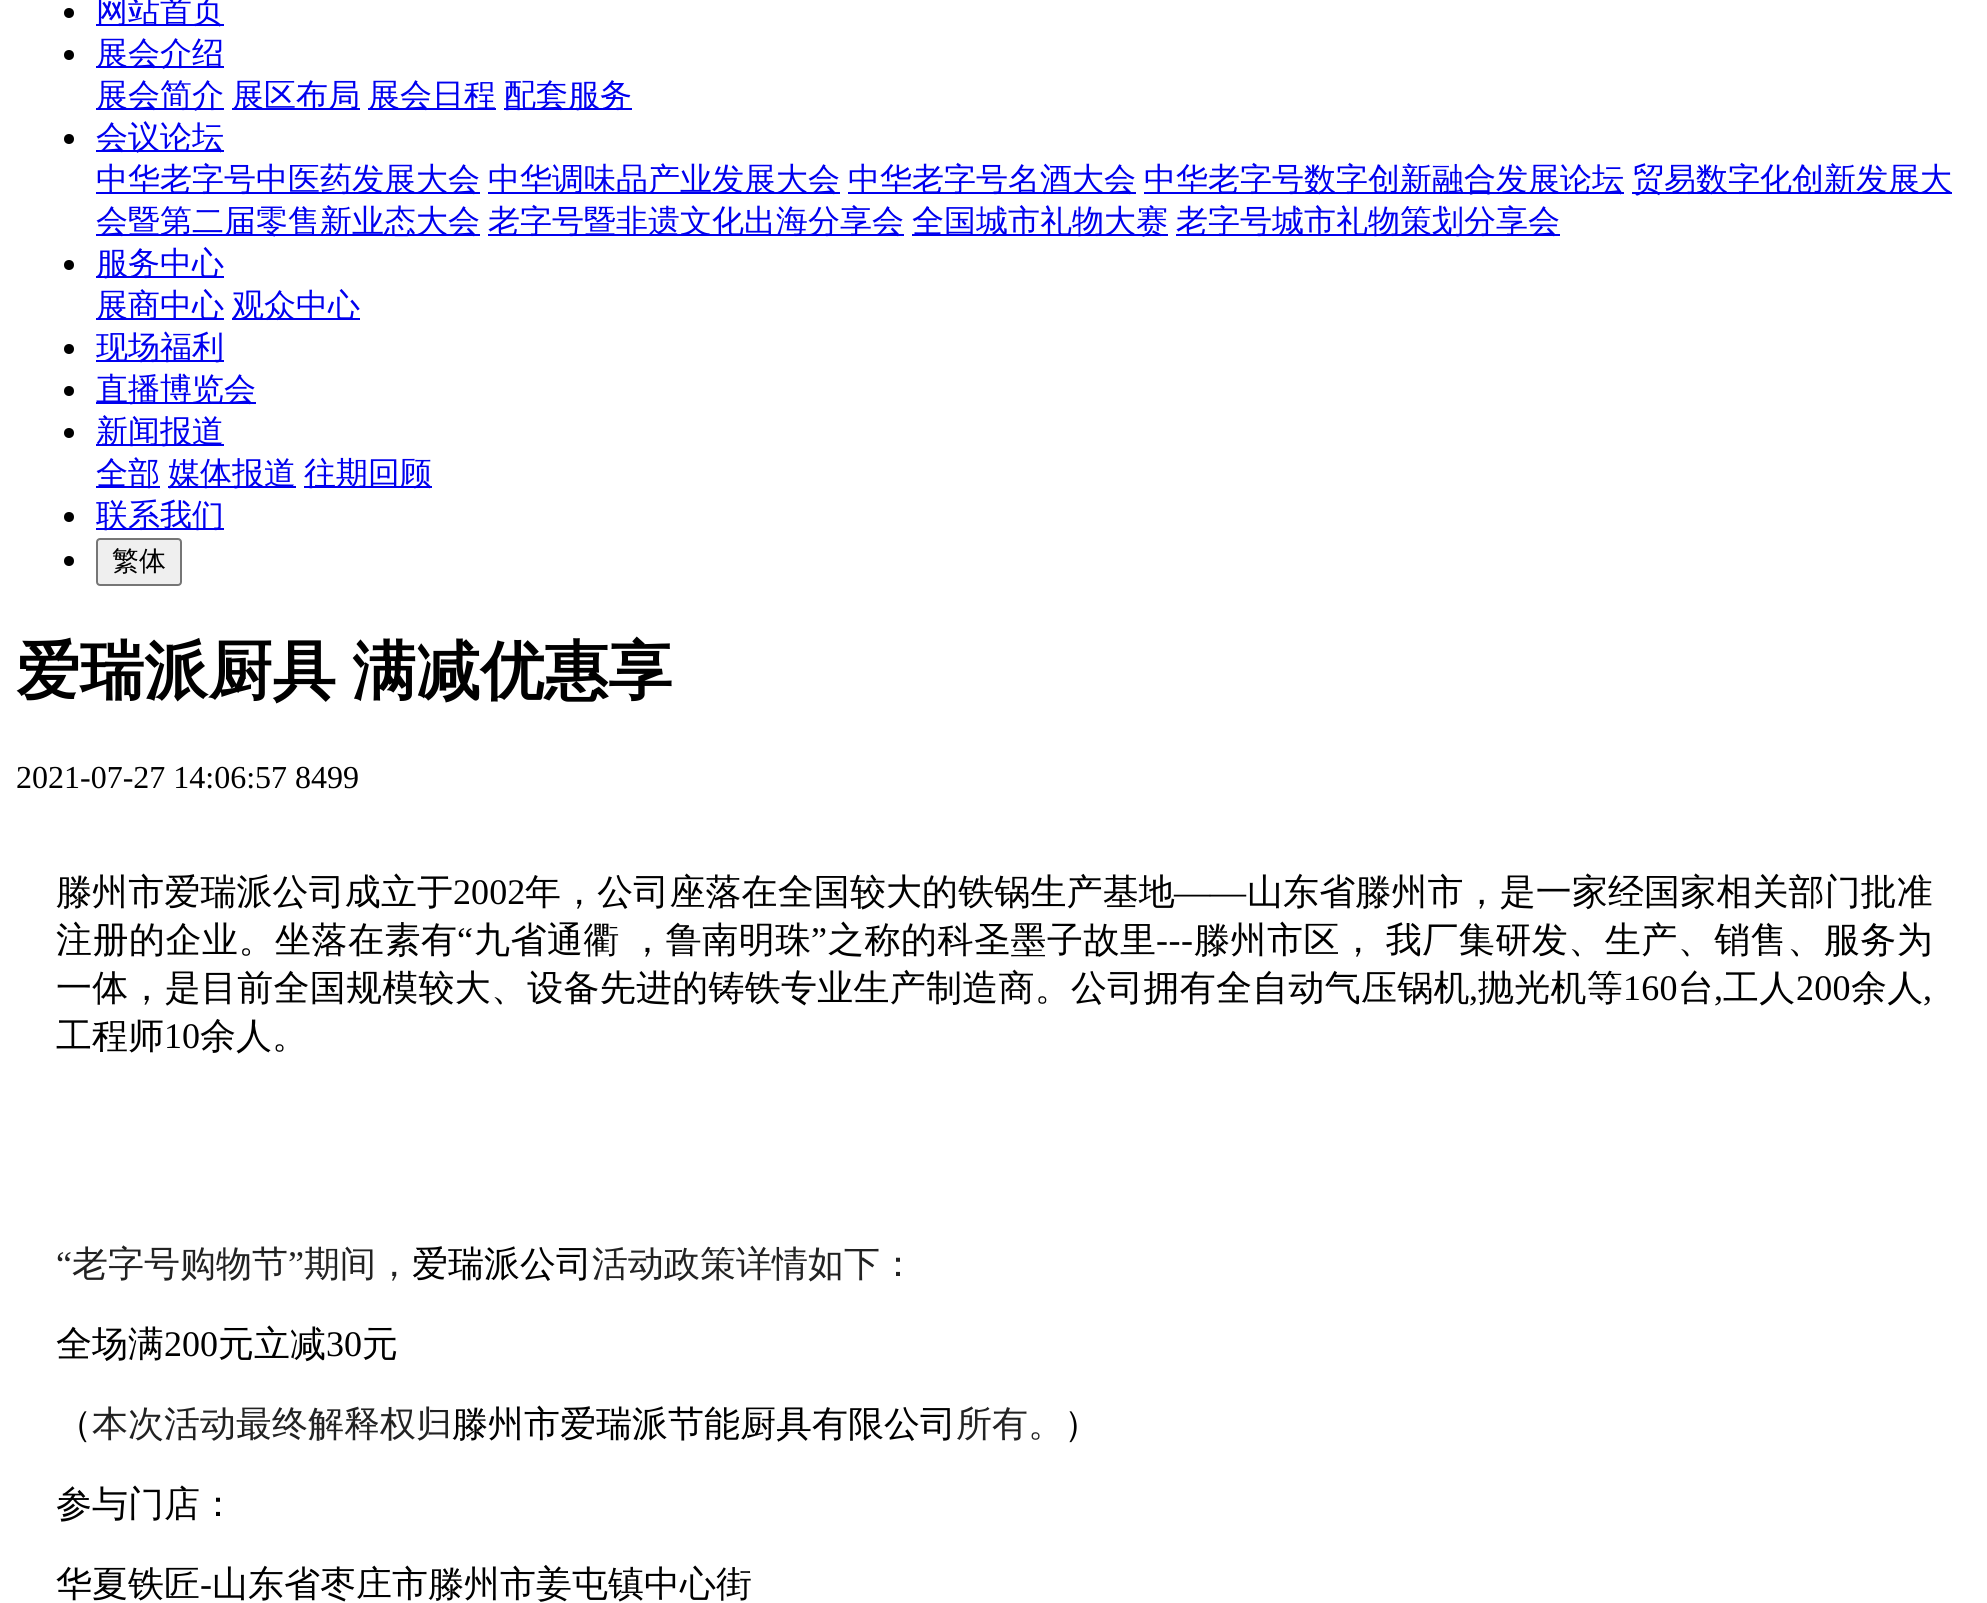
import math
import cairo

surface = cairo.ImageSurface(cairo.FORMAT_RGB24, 1987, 1603)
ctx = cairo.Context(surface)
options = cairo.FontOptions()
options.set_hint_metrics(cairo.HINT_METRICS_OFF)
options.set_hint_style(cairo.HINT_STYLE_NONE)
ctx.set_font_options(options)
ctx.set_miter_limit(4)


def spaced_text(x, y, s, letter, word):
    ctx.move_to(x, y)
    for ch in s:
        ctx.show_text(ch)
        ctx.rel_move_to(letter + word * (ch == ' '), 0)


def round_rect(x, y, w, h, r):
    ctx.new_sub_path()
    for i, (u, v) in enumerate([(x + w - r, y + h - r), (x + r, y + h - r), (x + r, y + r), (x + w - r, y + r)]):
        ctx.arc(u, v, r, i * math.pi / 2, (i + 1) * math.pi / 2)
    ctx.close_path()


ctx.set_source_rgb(1, 1, 1)
ctx.paint()
ctx.set_source_rgb(0, 0, 0)
ctx.arc(69, 13, 5, 0, 2 * math.pi)
ctx.fill()
ctx.set_source_rgb(0, 0, 0.933)
ctx.rectangle(96, 24, 128, 2)
ctx.fill()
ctx.select_font_face("WenQuanYi Zen Hei Medium")
ctx.set_font_size(32)
ctx.move_to(96, 22)
ctx.show_text("网站首页")
ctx.set_source_rgb(0, 0, 0)
ctx.new_path()
ctx.arc(69, 55, 5, 0, 2 * math.pi)
ctx.fill()
ctx.set_source_rgb(0, 0, 0.933)
ctx.rectangle(96, 66, 128, 2)
ctx.fill()
ctx.move_to(96, 64)
ctx.show_text("展会介绍")
ctx.rectangle(96, 108, 128, 2)
ctx.fill()
ctx.move_to(96, 106)
ctx.show_text("展会简介")
ctx.rectangle(232, 108, 128, 2)
ctx.fill()
ctx.move_to(232, 106)
ctx.show_text("展区布局")
ctx.rectangle(368, 108, 128, 2)
ctx.fill()
ctx.move_to(368, 106)
ctx.show_text("展会日程")
ctx.rectangle(504, 108, 128, 2)
ctx.fill()
ctx.move_to(504, 106)
ctx.show_text("配套服务")
ctx.set_source_rgb(0, 0, 0)
ctx.new_path()
ctx.arc(69, 139, 5, 0, 2 * math.pi)
ctx.fill()
ctx.set_source_rgb(0, 0, 0.933)
ctx.rectangle(96, 150, 128, 2)
ctx.fill()
ctx.move_to(96, 148)
ctx.show_text("会议论坛")
ctx.rectangle(96, 192, 384, 2)
ctx.fill()
ctx.move_to(96, 190)
ctx.show_text("中华老字号中医药发展大会")
ctx.rectangle(488, 192, 352, 2)
ctx.fill()
ctx.move_to(488, 190)
ctx.show_text("中华调味品产业发展大会")
ctx.rectangle(848, 192, 288, 2)
ctx.fill()
ctx.move_to(848, 190)
ctx.show_text("中华老字号名酒大会")
ctx.rectangle(1144, 192, 480, 2)
ctx.fill()
ctx.move_to(1144, 190)
ctx.show_text("中华老字号数字创新融合发展论坛")
ctx.rectangle(1632, 192, 320, 2)
ctx.fill()
ctx.move_to(1632, 190)
ctx.show_text("贸易数字化创新发展大")
ctx.rectangle(96, 234, 384, 2)
ctx.fill()
ctx.move_to(96, 232)
ctx.show_text("会暨第二届零售新业态大会")
ctx.rectangle(488, 234, 416, 2)
ctx.fill()
ctx.move_to(488, 232)
ctx.show_text("老字号暨非遗文化出海分享会")
ctx.rectangle(912, 234, 256, 2)
ctx.fill()
ctx.move_to(912, 232)
ctx.show_text("全国城市礼物大赛")
ctx.rectangle(1176, 234, 384, 2)
ctx.fill()
ctx.move_to(1176, 232)
ctx.show_text("老字号城市礼物策划分享会")
ctx.set_source_rgb(0, 0, 0)
ctx.new_path()
ctx.arc(69, 265, 5, 0, 2 * math.pi)
ctx.fill()
ctx.set_source_rgb(0, 0, 0.933)
ctx.rectangle(96, 276, 128, 2)
ctx.fill()
ctx.move_to(96, 274)
ctx.show_text("服务中心")
ctx.rectangle(96, 318, 128, 2)
ctx.fill()
ctx.move_to(96, 316)
ctx.show_text("展商中心")
ctx.rectangle(232, 318, 128, 2)
ctx.fill()
ctx.move_to(232, 316)
ctx.show_text("观众中心")
ctx.set_source_rgb(0, 0, 0)
ctx.new_path()
ctx.arc(69, 349, 5, 0, 2 * math.pi)
ctx.fill()
ctx.set_source_rgb(0, 0, 0.933)
ctx.rectangle(96, 360, 128, 2)
ctx.fill()
ctx.move_to(96, 358)
ctx.show_text("现场福利")
ctx.set_source_rgb(0, 0, 0)
ctx.new_path()
ctx.arc(69, 391, 5, 0, 2 * math.pi)
ctx.fill()
ctx.set_source_rgb(0, 0, 0.933)
ctx.rectangle(96, 402, 160, 2)
ctx.fill()
ctx.move_to(96, 400)
ctx.show_text("直播博览会")
ctx.set_source_rgb(0, 0, 0)
ctx.new_path()
ctx.arc(69, 433, 5, 0, 2 * math.pi)
ctx.fill()
ctx.set_source_rgb(0, 0, 0.933)
ctx.rectangle(96, 444, 128, 2)
ctx.fill()
ctx.move_to(96, 442)
ctx.show_text("新闻报道")
ctx.rectangle(96, 486, 64, 2)
ctx.fill()
ctx.move_to(96, 484)
ctx.show_text("全部")
ctx.rectangle(168, 486, 128, 2)
ctx.fill()
ctx.move_to(168, 484)
ctx.show_text("媒体报道")
ctx.rectangle(304, 486, 128, 2)
ctx.fill()
ctx.move_to(304, 484)
ctx.show_text("往期回顾")
ctx.set_source_rgb(0, 0, 0)
ctx.new_path()
ctx.arc(69, 517, 5, 0, 2 * math.pi)
ctx.fill()
ctx.set_source_rgb(0, 0, 0.933)
ctx.rectangle(96, 528, 128, 2)
ctx.fill()
ctx.move_to(96, 526)
ctx.show_text("联系我们")
ctx.set_source_rgb(0, 0, 0)
ctx.new_path()
ctx.arc(69, 561, 5, 0, 2 * math.pi)
ctx.fill()
ctx.set_source_rgb(0.937, 0.937, 0.937)
round_rect(97, 539, 84, 46, 3)
ctx.fill_preserve()
ctx.set_source_rgb(0.463, 0.463, 0.463)
ctx.stroke()
ctx.set_font_size(27)
ctx.set_source_rgb(0, 0, 0)
ctx.move_to(112, 570)
ctx.show_text("繁体")
ctx.select_font_face("WenQuanYi Zen Hei", cairo.FONT_SLANT_NORMAL, cairo.FONT_WEIGHT_BOLD)
ctx.set_font_size(64)
spaced_text(16, 693, "爱瑞派厨具 满减优惠享", 0, -3)
ctx.select_font_face("Liberation Serif")
ctx.set_font_size(32)
ctx.move_to(16, 788)
ctx.show_text("2021-07-27 14:06:57 8499")
ctx.select_font_face("WenQuanYi Zen Hei Medium")
ctx.set_font_size(36)
spaced_text(56, 904, "滕州市爱瑞派公司成立于", 0.1, 0)
ctx.select_font_face("Liberation Serif")
spaced_text(453, 904, "2002", 0.1, 0)
ctx.select_font_face("WenQuanYi Zen Hei Medium")
spaced_text(525, 904, "年，公司座落在全国较大的铁锅生产基地", 0.1, 0)
ctx.select_font_face("Liberation Serif")
spaced_text(1174, 904, "——", 0.1, 0)
ctx.select_font_face("WenQuanYi Zen Hei Medium")
spaced_text(1247, 904, "山东省滕州市，是一家经国家相关部门批准", 0.1, 0)
spaced_text(56, 952, "注册的企业。坐落在素有", 0.5, 0)
ctx.select_font_face("Liberation Serif")
spaced_text(457, 952, "“", 0.5, 0)
ctx.select_font_face("WenQuanYi Zen Hei Medium")
spaced_text(474, 952, "九省通衢 ，鲁南明珠", 0.5, -2)
ctx.select_font_face("Liberation Serif")
spaced_text(811, 952, "”", 0.5, 0)
ctx.select_font_face("WenQuanYi Zen Hei Medium")
spaced_text(828, 952, "之称的科圣墨子故里", 0.5, 0)
spaced_text(1194, 952, "滕州市区， 我厂集研发、生产、销售、服务为", 0.5, -2)
ctx.select_font_face("Liberation Serif")
spaced_text(1156, 952, "---", 0.5, 0)
ctx.select_font_face("WenQuanYi Zen Hei Medium")
spaced_text(56, 1000, "一体，是目前全国规模较大、设备先进的铸铁专业生产制造商。公司拥有全自动气压锅机", 0.25, 0)
ctx.select_font_face("Liberation Serif")
spaced_text(1469, 1000, ",", 0.25, 0)
ctx.select_font_face("WenQuanYi Zen Hei Medium")
spaced_text(1478, 1000, "抛光机等", 0.25, 0)
ctx.select_font_face("Liberation Serif")
spaced_text(1623, 1000, "160", 0.25, 0)
ctx.select_font_face("WenQuanYi Zen Hei Medium")
spaced_text(1678, 1000, "台", 0.25, 0)
ctx.select_font_face("Liberation Serif")
spaced_text(1714, 1000, ",", 0.25, 0)
ctx.select_font_face("WenQuanYi Zen Hei Medium")
spaced_text(1723, 1000, "工人", 0.25, 0)
ctx.select_font_face("Liberation Serif")
spaced_text(1796, 1000, "200", 0.25, 0)
ctx.select_font_face("WenQuanYi Zen Hei Medium")
spaced_text(1851, 1000, "余人", 0.25, 0)
ctx.select_font_face("Liberation Serif")
spaced_text(1923, 1000, ",", 0.25, 0)
ctx.select_font_face("WenQuanYi Zen Hei Medium")
ctx.move_to(56, 1048)
ctx.show_text("工程师")
ctx.select_font_face("Liberation Serif")
ctx.move_to(164, 1048)
ctx.show_text("10")
ctx.select_font_face("WenQuanYi Zen Hei Medium")
ctx.move_to(200, 1048)
ctx.show_text("余人。")
ctx.select_font_face("Liberation Serif")
ctx.set_source_rgb(0.133, 0.133, 0.133)
ctx.move_to(56, 1276)
ctx.show_text("“")
ctx.select_font_face("WenQuanYi Zen Hei Medium")
ctx.move_to(72, 1276)
ctx.show_text("老字号购物节")
ctx.select_font_face("Liberation Serif")
ctx.move_to(288, 1276)
ctx.show_text("”")
ctx.select_font_face("WenQuanYi Zen Hei Medium")
ctx.move_to(304, 1276)
ctx.show_text("期间，")
ctx.set_source_rgb(0, 0, 0)
ctx.move_to(412, 1276)
ctx.show_text("爱瑞派公司")
ctx.set_source_rgb(0.133, 0.133, 0.133)
ctx.move_to(592, 1276)
ctx.show_text("活动政策详情如下：")
ctx.set_source_rgb(0, 0, 0)
ctx.move_to(56, 1356)
ctx.show_text("全场满")
ctx.select_font_face("Liberation Serif")
ctx.move_to(164, 1356)
ctx.show_text("200")
ctx.select_font_face("WenQuanYi Zen Hei Medium")
ctx.move_to(218, 1356)
ctx.show_text("元立减")
ctx.select_font_face("Liberation Serif")
ctx.move_to(326, 1356)
ctx.show_text("30")
ctx.select_font_face("WenQuanYi Zen Hei Medium")
ctx.move_to(362, 1356)
ctx.show_text("元")
ctx.move_to(56, 1436)
ctx.show_text("（")
ctx.set_source_rgb(0.133, 0.133, 0.133)
ctx.move_to(92, 1436)
ctx.show_text("本次活动最终解释权归")
ctx.set_source_rgb(0, 0, 0)
ctx.move_to(452, 1436)
ctx.show_text("滕州市爱瑞派节能厨具有限公司")
ctx.set_source_rgb(0.133, 0.133, 0.133)
ctx.move_to(956, 1436)
ctx.show_text("所有。")
ctx.set_source_rgb(0, 0, 0)
ctx.move_to(1064, 1436)
ctx.show_text("）")
ctx.move_to(56, 1516)
ctx.show_text("参与门店：")
ctx.move_to(56, 1596)
ctx.show_text("华夏铁匠")
ctx.select_font_face("Liberation Serif")
ctx.move_to(200, 1596)
ctx.show_text("-")
ctx.select_font_face("WenQuanYi Zen Hei Medium")
ctx.move_to(212, 1596)
ctx.show_text("山东省枣庄市滕州市姜屯镇中心街")
surface.write_to_png("page.png")
